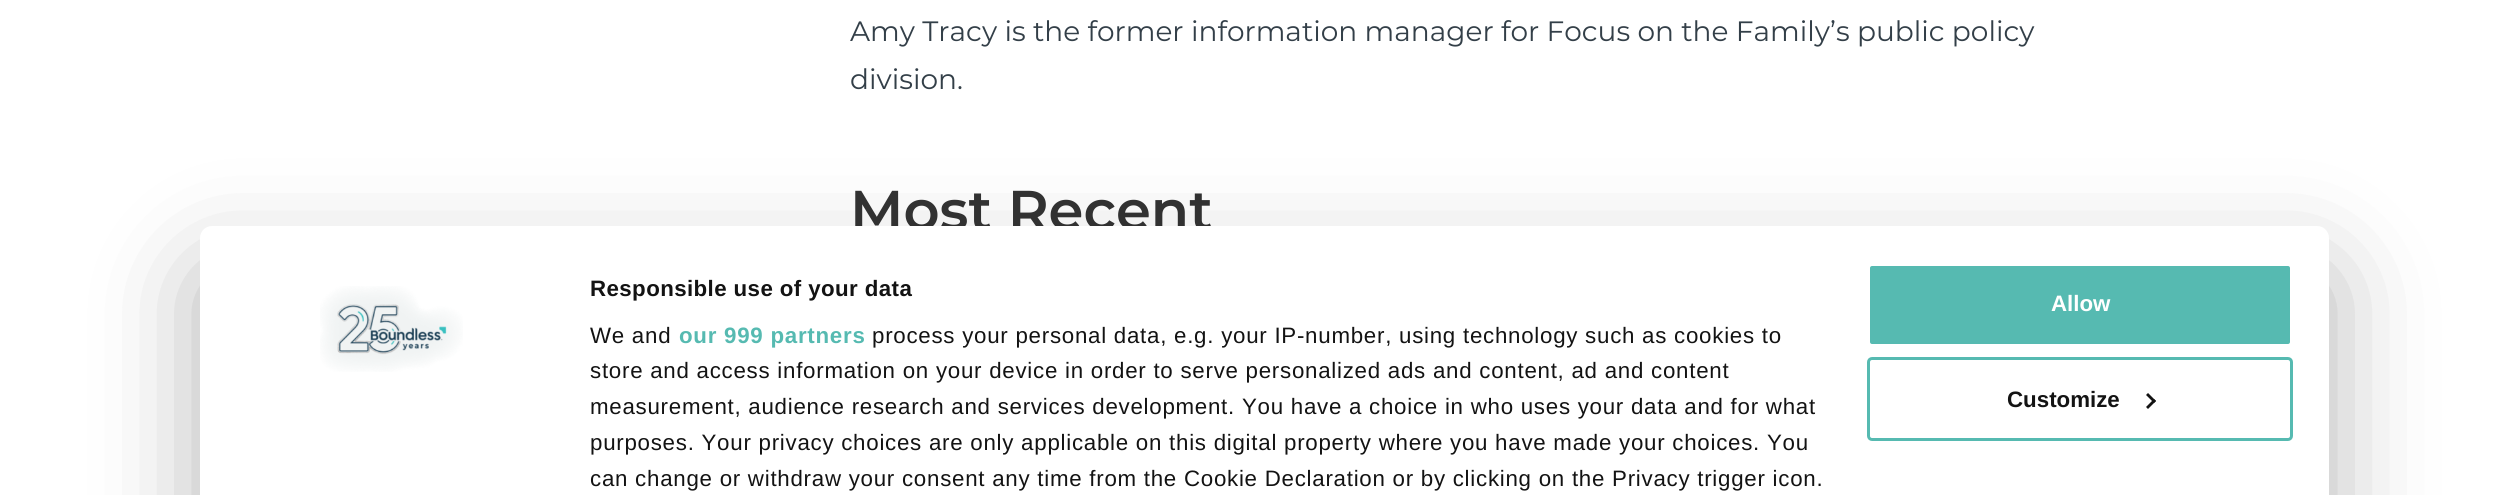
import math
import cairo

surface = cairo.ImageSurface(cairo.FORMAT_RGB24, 2503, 495)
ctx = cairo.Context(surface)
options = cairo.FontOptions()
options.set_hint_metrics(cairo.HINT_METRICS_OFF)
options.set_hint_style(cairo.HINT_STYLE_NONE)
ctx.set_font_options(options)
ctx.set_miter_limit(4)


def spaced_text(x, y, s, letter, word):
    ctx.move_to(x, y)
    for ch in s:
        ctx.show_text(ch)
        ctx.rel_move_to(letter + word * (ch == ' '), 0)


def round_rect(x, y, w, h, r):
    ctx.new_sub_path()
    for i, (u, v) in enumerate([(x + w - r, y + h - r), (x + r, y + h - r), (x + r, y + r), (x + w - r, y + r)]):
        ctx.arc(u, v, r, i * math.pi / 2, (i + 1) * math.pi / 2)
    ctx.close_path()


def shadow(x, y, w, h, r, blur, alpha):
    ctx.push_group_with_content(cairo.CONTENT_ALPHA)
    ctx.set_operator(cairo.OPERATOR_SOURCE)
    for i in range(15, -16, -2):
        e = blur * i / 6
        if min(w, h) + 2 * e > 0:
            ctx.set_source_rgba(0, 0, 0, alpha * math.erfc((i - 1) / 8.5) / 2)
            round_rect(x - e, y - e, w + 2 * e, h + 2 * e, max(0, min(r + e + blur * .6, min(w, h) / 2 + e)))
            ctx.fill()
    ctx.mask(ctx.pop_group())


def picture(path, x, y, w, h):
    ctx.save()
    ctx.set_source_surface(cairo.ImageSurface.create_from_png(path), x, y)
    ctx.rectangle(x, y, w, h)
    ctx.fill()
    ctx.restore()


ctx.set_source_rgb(1, 1, 1)
ctx.paint()
ctx.select_font_face("Montserrat")
ctx.set_font_size(28)
ctx.set_source_rgb(0.2, 0.247, 0.282)
ctx.move_to(850, 41)
ctx.show_text("Amy Tracy is the former information manager for Focus on the Family’s public policy")
ctx.move_to(850, 89)
ctx.show_text("division.")
ctx.select_font_face("Montserrat SemiBold")
ctx.set_font_size(56)
ctx.set_source_rgb(0.2, 0.2, 0.2)
ctx.move_to(850, 230)
ctx.show_text("Most Recent")
ctx.set_source_rgb(0, 0, 0)
shadow(200, 271, 2129, 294, 12, 52, 0.3)
ctx.set_source_rgb(1, 1, 1)
round_rect(200, 226, 2129, 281, 12)
ctx.fill()
picture("img1.png", 320, 286, 143, 86)
ctx.select_font_face("Liberation Sans", cairo.FONT_SLANT_NORMAL, cairo.FONT_WEIGHT_BOLD)
ctx.set_font_size(22.3)
ctx.set_source_rgb(0.078, 0.078, 0.078)
spaced_text(590, 296, "Responsible use of your data", 0.4, 0)
ctx.select_font_face("Liberation Sans")
spaced_text(590, 343, "We and", 0.74, 0)
ctx.select_font_face("Liberation Sans", cairo.FONT_SLANT_NORMAL, cairo.FONT_WEIGHT_BOLD)
ctx.set_source_rgb(0.337, 0.729, 0.694)
spaced_text(679, 343, "our 999 partners", 0.74, 0)
ctx.select_font_face("Liberation Sans")
ctx.set_source_rgb(0.078, 0.078, 0.078)
spaced_text(872, 343, "process your personal data, e.g. your IP-number, using technology such as cookies to", 0.74, 0)
spaced_text(590, 378, "store and access information on your device in order to serve personalized ads and content, ad and content", 0.74, 0)
spaced_text(590, 414, "measurement, audience research and services development. You have a choice in who uses your data and for what", 0.74, 0)
spaced_text(590, 450, "purposes. Your privacy choices are only applicable on this digital property where you have made your choices. You", 0.74, 0)
spaced_text(590, 486, "can change or withdraw your consent any time from the Cookie Declaration or by clicking on the Privacy trigger icon.", 0.74, 0)
ctx.set_source_rgb(0.337, 0.729, 0.694)
round_rect(1868.5, 264.5, 423, 81, 3.5)
ctx.fill_preserve()
ctx.set_source_rgb(1, 1, 1)
ctx.set_line_width(3)
ctx.stroke()
ctx.select_font_face("Liberation Sans", cairo.FONT_SLANT_NORMAL, cairo.FONT_WEIGHT_BOLD)
ctx.move_to(2051, 311)
ctx.show_text("Allow")
round_rect(1868.5, 358.5, 423, 81, 3.5)
ctx.set_source_rgb(0.337, 0.729, 0.694)
ctx.stroke()
ctx.set_source_rgb(0.078, 0.078, 0.078)
ctx.move_to(2007, 407)
ctx.show_text("Customize")
ctx.new_path()
ctx.move_to(2148, 393)
ctx.line_to(2156, 401)
ctx.line_to(2154, 403)
ctx.line_to(2146, 395)
ctx.close_path()
ctx.fill()
ctx.new_path()
ctx.move_to(2154, 399)
ctx.line_to(2156, 401)
ctx.line_to(2148, 409)
ctx.line_to(2146, 407)
ctx.close_path()
ctx.fill()
surface.write_to_png("page.png")
